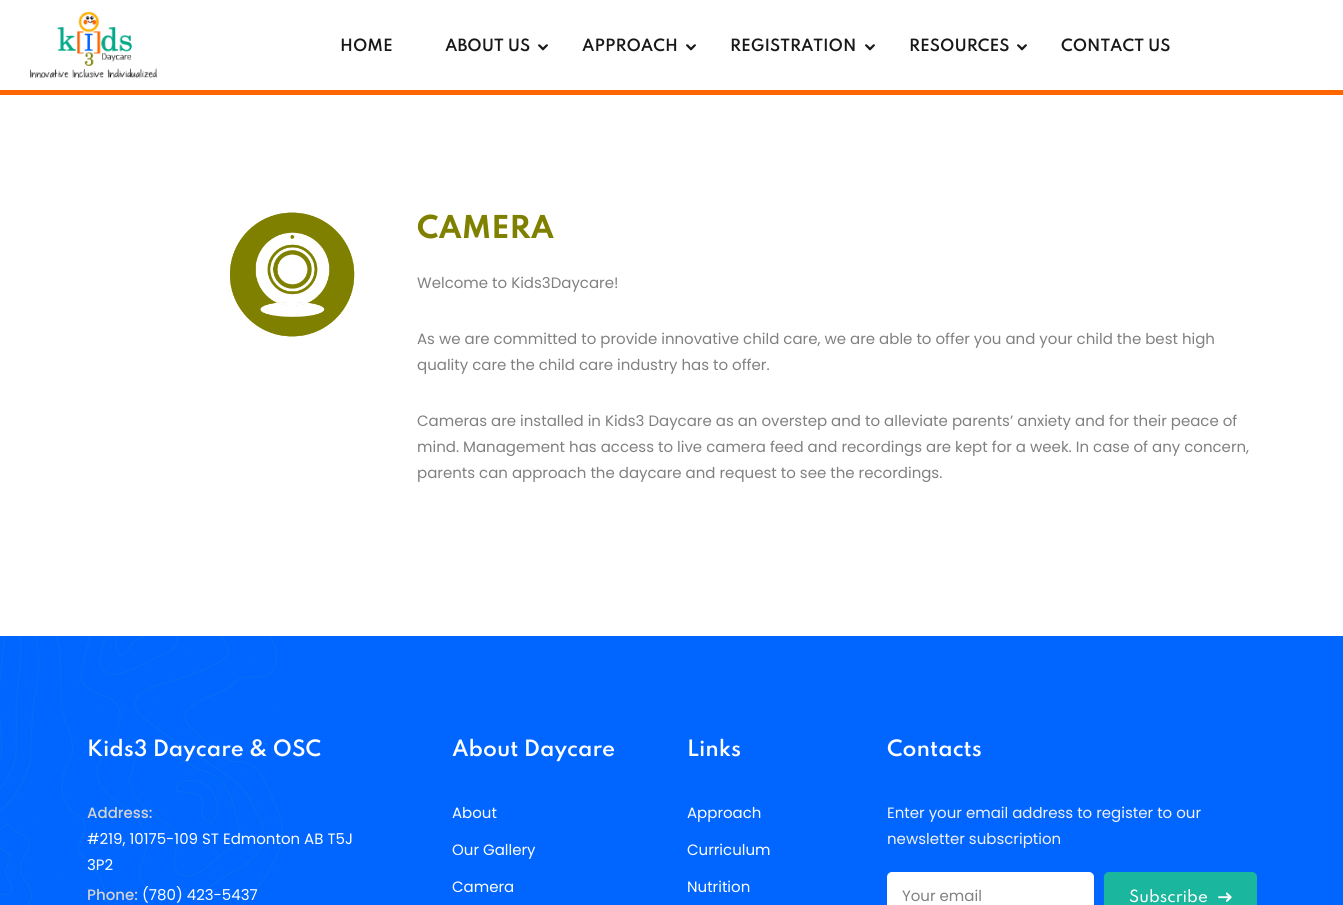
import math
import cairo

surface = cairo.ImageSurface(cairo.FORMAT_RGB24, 1343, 905)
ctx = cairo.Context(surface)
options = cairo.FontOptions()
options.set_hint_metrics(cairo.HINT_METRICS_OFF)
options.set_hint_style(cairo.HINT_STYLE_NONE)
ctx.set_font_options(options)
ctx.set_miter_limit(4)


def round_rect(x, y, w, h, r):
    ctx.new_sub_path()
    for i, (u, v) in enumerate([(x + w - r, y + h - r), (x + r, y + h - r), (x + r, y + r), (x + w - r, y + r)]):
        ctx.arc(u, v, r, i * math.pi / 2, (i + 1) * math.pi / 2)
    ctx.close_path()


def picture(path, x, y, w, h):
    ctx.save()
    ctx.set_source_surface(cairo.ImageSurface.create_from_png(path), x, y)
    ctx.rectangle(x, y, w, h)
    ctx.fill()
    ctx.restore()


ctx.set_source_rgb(1, 1, 1)
ctx.paint()
ctx.set_source_rgb(1, 0.4, 0)
ctx.rectangle(0, 90, 1343, 5)
ctx.fill()
picture("img1.png", 30, 12, 127, 66)
ctx.select_font_face("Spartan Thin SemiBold")
ctx.set_font_size(15)
ctx.set_source_rgb(0.094, 0.094, 0.094)
ctx.move_to(340, 51)
ctx.show_text("HOME")
ctx.move_to(445, 51)
ctx.show_text("ABOUT US")
picture("img2.png", 538, 44, 10, 7)
ctx.move_to(582, 51)
ctx.show_text("APPROACH")
picture("img2.png", 686, 44, 10, 7)
ctx.move_to(730, 51)
ctx.show_text("REGISTRATION")
picture("img2.png", 865, 44, 10, 7)
ctx.move_to(909, 51)
ctx.show_text("RESOURCES")
picture("img2.png", 1017, 44, 10, 7)
ctx.move_to(1061, 51)
ctx.show_text("CONTACT US")
picture("img3.png", 230, 212, 125, 125)
ctx.select_font_face("Spartan Thin", cairo.FONT_SLANT_NORMAL, cairo.FONT_WEIGHT_BOLD)
ctx.set_font_size(28)
ctx.set_source_rgb(0.502, 0.502, 0)
ctx.move_to(417, 238)
ctx.show_text("CAMERA")
ctx.select_font_face("Poppins")
ctx.set_font_size(15)
ctx.set_source_rgb(0.502, 0.502, 0.502)
ctx.move_to(417, 288)
ctx.show_text("Welcome to Kids3Daycare!")
ctx.move_to(417, 344)
ctx.show_text("As we are committed to provide innovative child care, we are able to offer you and your child the best high")
ctx.move_to(417, 370)
ctx.show_text("quality care the child care industry has to offer.")
ctx.move_to(417, 426)
ctx.show_text("Cameras are installed in Kids3 Daycare as an overstep and to alleviate parents’ anxiety and for their peace of")
ctx.move_to(417, 452)
ctx.show_text("mind. Management has access to live camera feed and recordings are kept for a week. In case of any concern,")
ctx.move_to(417, 478)
ctx.show_text("parents can approach the daycare and request to see the recordings.")
ctx.set_source_rgb(0, 0.4, 1)
ctx.rectangle(0, 636, 1343, 269)
ctx.fill()
picture("img4.png", 0, 636, 283, 269)
ctx.select_font_face("Spartan Thin SemiBold")
ctx.set_font_size(20)
ctx.set_source_rgb(1, 1, 1)
ctx.move_to(87, 756)
ctx.show_text("Kids3 Daycare & OSC")
ctx.select_font_face("Poppins Medium")
ctx.set_font_size(15)
ctx.set_source_rgb(0.827, 0.827, 0.827)
ctx.move_to(87, 818)
ctx.show_text("Address:")
ctx.select_font_face("Poppins")
ctx.set_source_rgb(1, 1, 1)
ctx.move_to(87, 844)
ctx.show_text("#219, 10175-109 ST Edmonton AB T5J")
ctx.move_to(87, 870)
ctx.show_text("3P2")
ctx.select_font_face("Poppins Medium")
ctx.set_source_rgb(0.827, 0.827, 0.827)
ctx.move_to(87, 900)
ctx.show_text("Phone:")
ctx.select_font_face("Poppins")
ctx.set_source_rgb(1, 1, 1)
ctx.move_to(142, 900)
ctx.show_text("(780) 423-5437")
ctx.select_font_face("Spartan Thin SemiBold")
ctx.set_font_size(20)
ctx.move_to(452, 756)
ctx.show_text("About Daycare")
ctx.select_font_face("Poppins")
ctx.set_font_size(15)
ctx.move_to(452, 818)
ctx.show_text("About")
ctx.move_to(452, 855)
ctx.show_text("Our Gallery")
ctx.move_to(452, 892)
ctx.show_text("Camera")
ctx.select_font_face("Spartan Thin SemiBold")
ctx.set_font_size(20)
ctx.move_to(687, 756)
ctx.show_text("Links")
ctx.select_font_face("Poppins")
ctx.set_font_size(15)
ctx.move_to(687, 818)
ctx.show_text("Approach")
ctx.move_to(687, 855)
ctx.show_text("Curriculum")
ctx.move_to(687, 892)
ctx.show_text("Nutrition")
ctx.select_font_face("Spartan Thin SemiBold")
ctx.set_font_size(20)
ctx.move_to(887, 756)
ctx.show_text("Contacts")
ctx.select_font_face("Poppins")
ctx.set_font_size(15)
ctx.set_source_rgb(0.949, 0.949, 0.949)
ctx.move_to(887, 818)
ctx.show_text("Enter your email address to register to our")
ctx.move_to(887, 844)
ctx.show_text("newsletter subscription")
ctx.set_source_rgb(1, 1, 1)
round_rect(887, 872, 207, 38, 5)
ctx.fill()
ctx.set_source_rgb(0.502, 0.502, 0.502)
ctx.move_to(902, 901)
ctx.show_text("Your email")
ctx.set_source_rgb(0.102, 0.714, 0.616)
round_rect(1104, 872, 153, 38, 5)
ctx.fill()
ctx.select_font_face("Spartan Thin Medium")
ctx.set_source_rgb(1, 1, 1)
ctx.move_to(1129, 902)
ctx.show_text("Subscribe")
picture("img5.png", 1218, 892, 14, 10)
surface.write_to_png("page.png")
